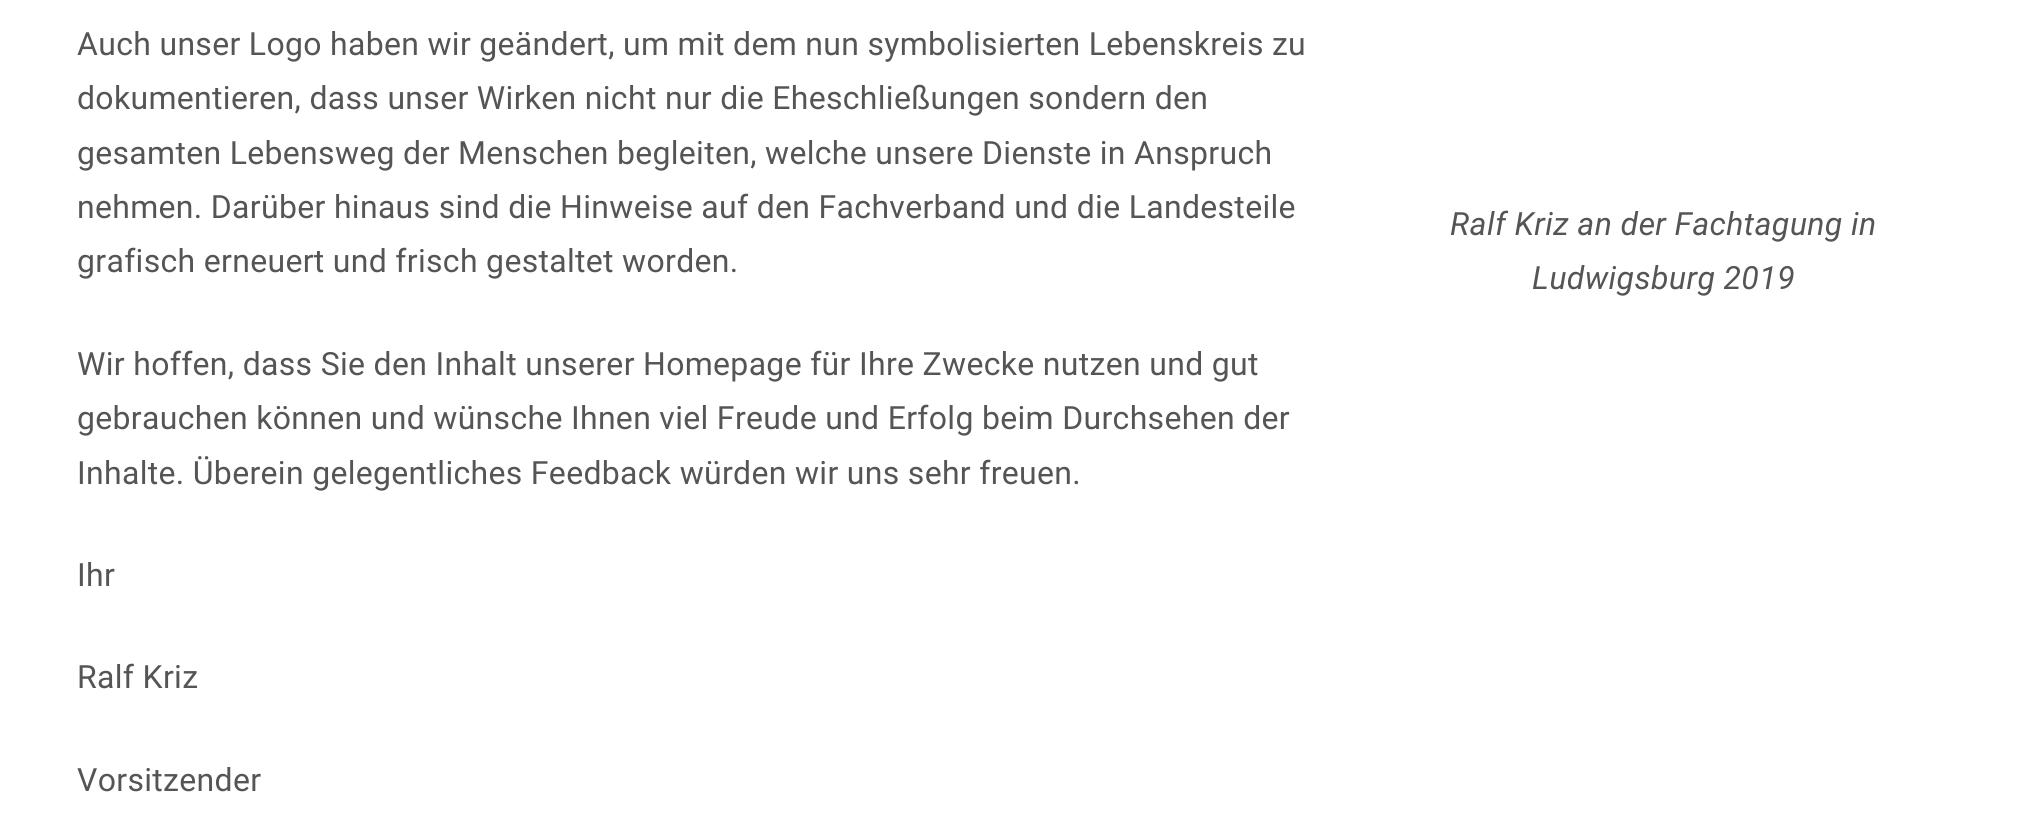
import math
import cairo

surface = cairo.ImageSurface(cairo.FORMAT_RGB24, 2033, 813)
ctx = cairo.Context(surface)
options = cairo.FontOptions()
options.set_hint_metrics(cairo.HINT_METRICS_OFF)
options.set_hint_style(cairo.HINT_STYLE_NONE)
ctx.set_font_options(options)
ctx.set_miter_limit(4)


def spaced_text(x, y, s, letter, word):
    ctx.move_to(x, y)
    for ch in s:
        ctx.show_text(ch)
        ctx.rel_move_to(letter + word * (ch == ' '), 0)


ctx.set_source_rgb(1, 1, 1)
ctx.paint()
ctx.select_font_face("Roboto")
ctx.set_font_size(32)
ctx.set_source_rgb(0.333, 0.333, 0.333)
spaced_text(77, 55, "Auch unser Logo haben wir geändert, um mit dem nun symbolisierten Lebenskreis zu", 0.32, 0)
spaced_text(77, 109, "dokumentieren, dass unser Wirken nicht nur die Eheschließungen sondern den", 0.32, 0)
spaced_text(77, 164, "gesamten Lebensweg der Menschen begleiten, welche unsere Dienste in Anspruch", 0.32, 0)
spaced_text(77, 218, "nehmen. Darüber hinaus sind die Hinweise auf den Fachverband und die Landesteile", 0.32, 0)
spaced_text(77, 272, "grafisch erneuert und frisch gestaltet worden.", 0.32, 0)
spaced_text(77, 375, "Wir hoffen, dass Sie den Inhalt unserer Homepage für Ihre Zwecke nutzen und gut", 0.32, 0)
spaced_text(77, 429, "gebrauchen können und wünsche Ihnen viel Freude und Erfolg beim Durchsehen der", 0.32, 0)
spaced_text(77, 484, "Inhalte. Überein gelegentliches Feedback würden wir uns sehr freuen.", 0.32, 0)
spaced_text(77, 586, "Ihr", 0.32, 0)
spaced_text(77, 688, "Ralf Kriz", 0.32, 0)
spaced_text(77, 791, "Vorsitzender", 0.32, 0)
ctx.select_font_face("Roboto", cairo.FONT_SLANT_ITALIC)
spaced_text(1450, 235, "Ralf Kriz an der Fachtagung in", 0.32, 0)
spaced_text(1532, 289, "Ludwigsburg 2019", 0.32, 0)
surface.write_to_png("page.png")
